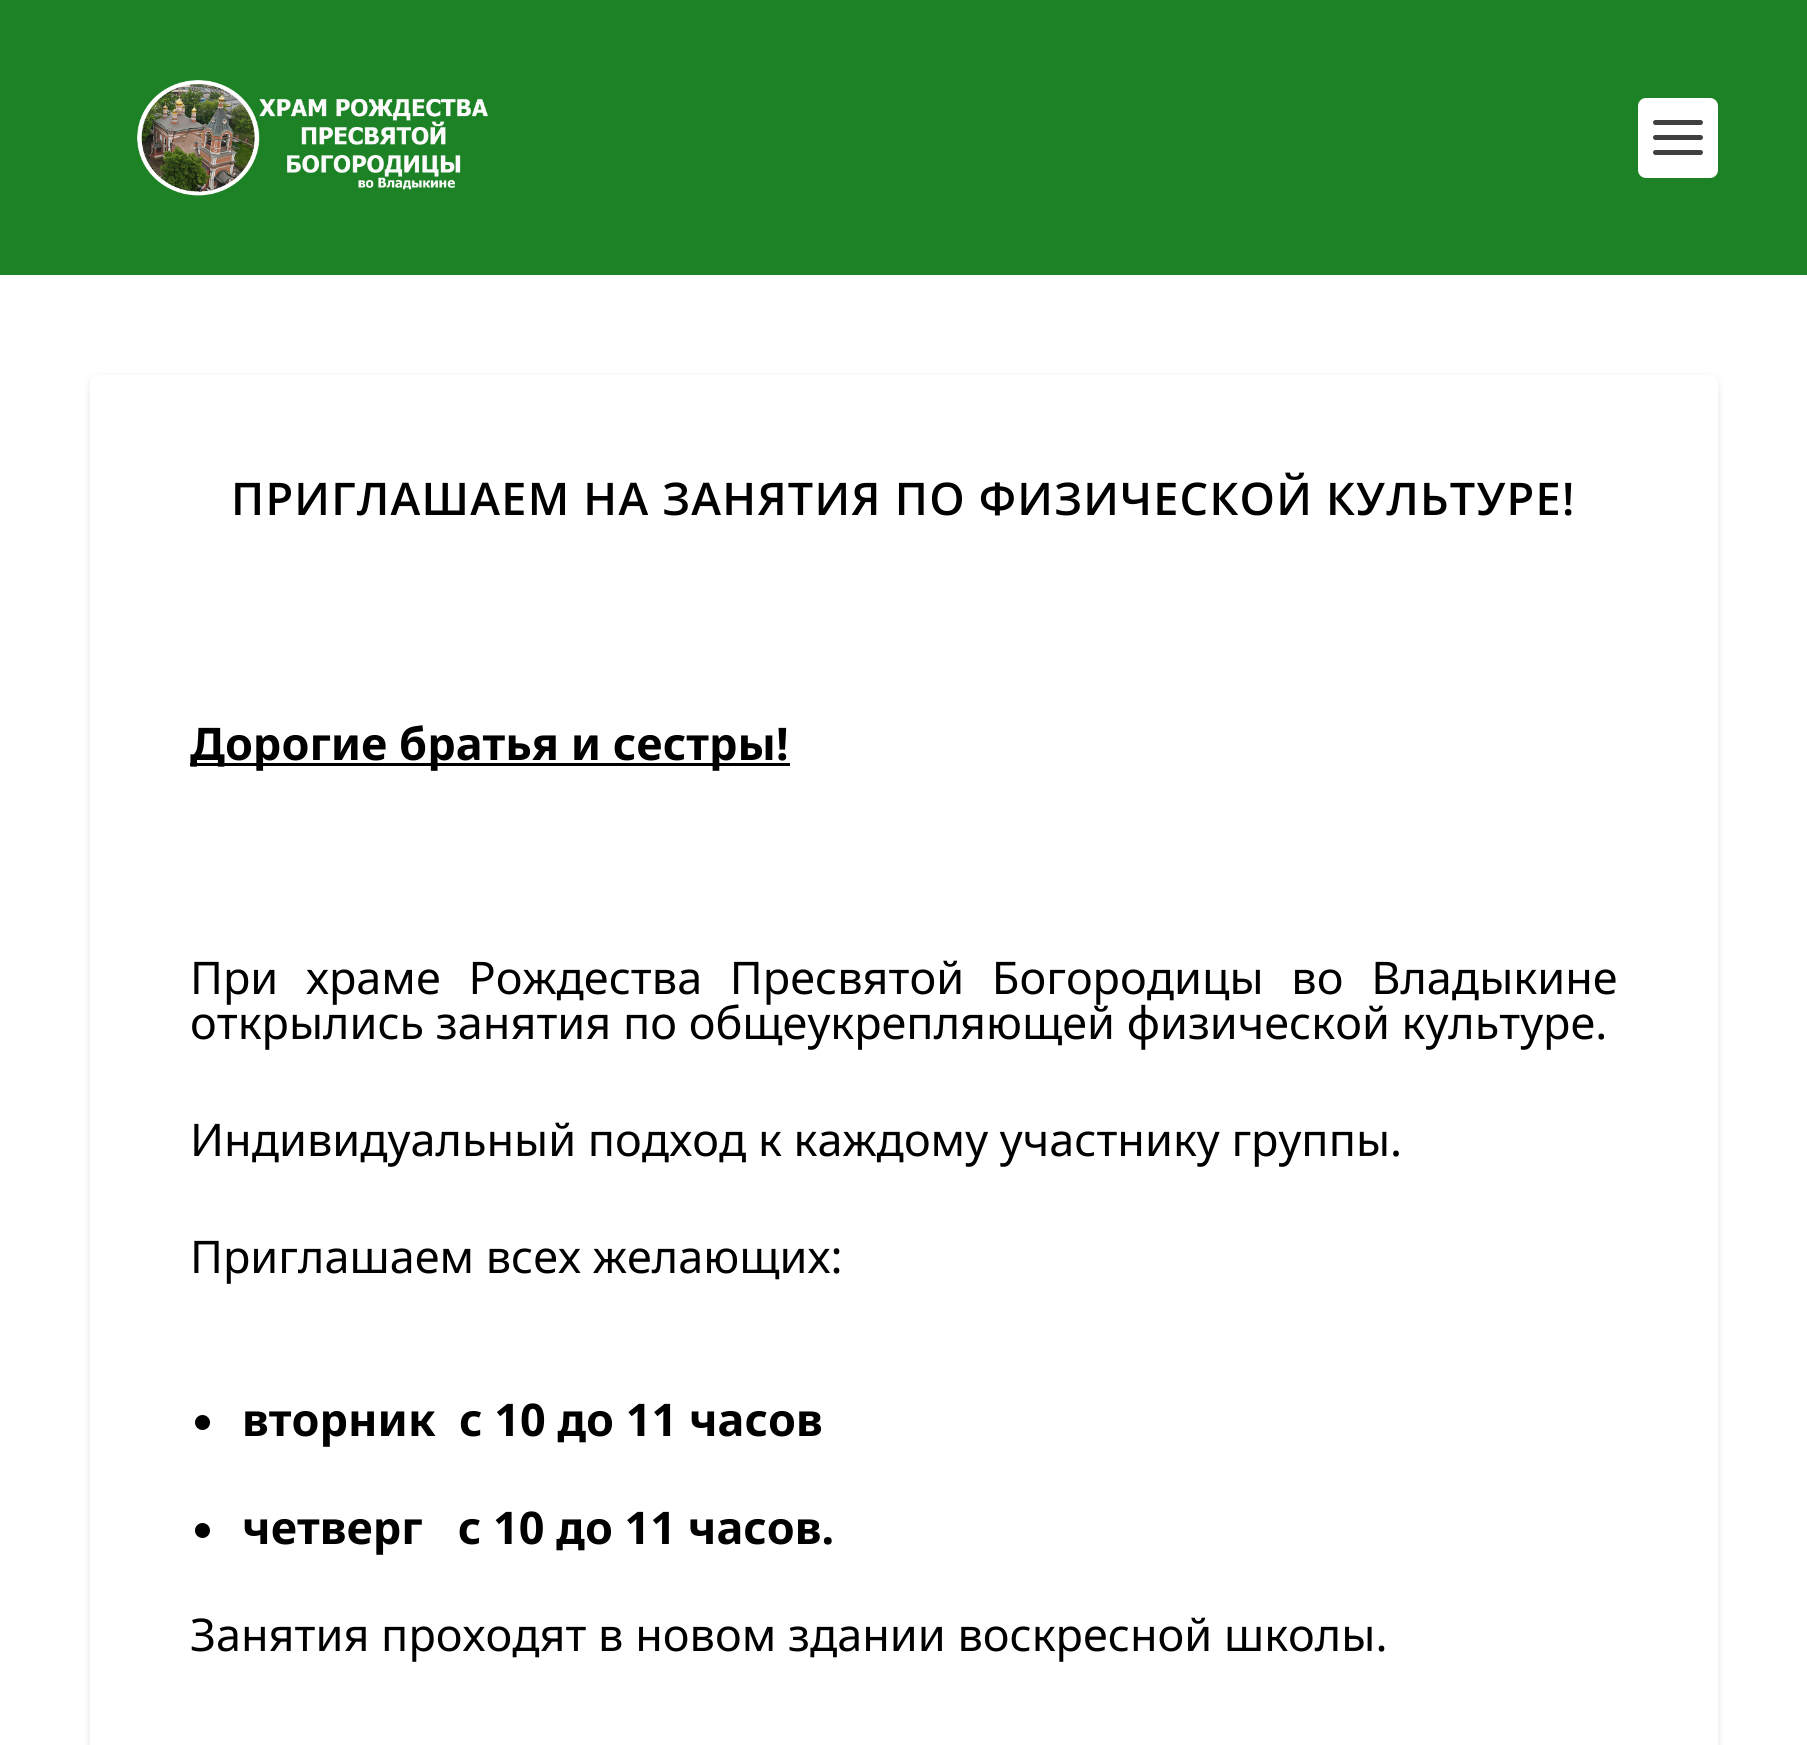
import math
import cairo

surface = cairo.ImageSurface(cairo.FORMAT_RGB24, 1807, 1745)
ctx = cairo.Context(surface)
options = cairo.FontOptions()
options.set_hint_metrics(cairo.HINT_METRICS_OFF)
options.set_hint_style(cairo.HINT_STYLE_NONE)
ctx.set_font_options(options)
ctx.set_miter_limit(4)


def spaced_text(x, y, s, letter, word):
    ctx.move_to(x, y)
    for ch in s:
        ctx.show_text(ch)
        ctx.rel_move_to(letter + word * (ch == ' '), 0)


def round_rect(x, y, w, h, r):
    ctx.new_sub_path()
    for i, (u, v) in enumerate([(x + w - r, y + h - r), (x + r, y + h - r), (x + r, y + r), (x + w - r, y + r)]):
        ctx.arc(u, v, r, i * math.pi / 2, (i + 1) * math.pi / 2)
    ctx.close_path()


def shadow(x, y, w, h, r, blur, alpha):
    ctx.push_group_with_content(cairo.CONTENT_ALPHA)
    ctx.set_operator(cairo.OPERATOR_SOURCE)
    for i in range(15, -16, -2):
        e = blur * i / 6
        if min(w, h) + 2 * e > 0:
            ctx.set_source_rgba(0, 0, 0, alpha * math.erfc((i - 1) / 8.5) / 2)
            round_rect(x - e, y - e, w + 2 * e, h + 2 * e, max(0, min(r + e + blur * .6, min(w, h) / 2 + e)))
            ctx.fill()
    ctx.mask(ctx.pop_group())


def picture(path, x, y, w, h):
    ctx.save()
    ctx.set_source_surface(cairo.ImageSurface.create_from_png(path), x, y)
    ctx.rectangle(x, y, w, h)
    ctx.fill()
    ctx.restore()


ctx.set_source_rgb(1, 1, 1)
ctx.paint()
ctx.set_source_rgb(0.114, 0.51, 0.149)
ctx.rectangle(0, 0, 1807, 275)
ctx.fill()
picture("img1.png", 137, 80, 351, 116)
ctx.set_source_rgb(1, 1, 1)
round_rect(1638, 98, 80, 80, 8)
ctx.fill()
ctx.set_source_rgb(0.251, 0.251, 0.251)
round_rect(1653, 120, 50, 5, 2.5)
ctx.fill()
round_rect(1653, 135, 50, 5, 2.5)
ctx.fill()
round_rect(1653, 150, 50, 5, 2.5)
ctx.fill()
ctx.set_source_rgb(0, 0, 0)
shadow(90, 378, 1628, 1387, 8, 4, 0.1)
ctx.set_source_rgb(1, 1, 1)
round_rect(90, 375, 1628, 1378, 8)
ctx.fill()
ctx.select_font_face("Open Sans SemiBold")
ctx.set_font_size(45)
ctx.set_source_rgb(0, 0, 0)
spaced_text(231, 515, "ПРИГЛАШАЕМ НА ЗАНЯТИЯ ПО ФИЗИЧЕСКОЙ КУЛЬТУРЕ!", 1.25, 0)
ctx.rectangle(190, 763, 600, 3)
ctx.fill()
ctx.select_font_face("Noto Sans", cairo.FONT_SLANT_NORMAL, cairo.FONT_WEIGHT_BOLD)
ctx.move_to(190, 760)
ctx.show_text("Дорогие братья и сестры!")
ctx.select_font_face("Noto Sans")
spaced_text(190, 994, "При храме Рождества Пресвятой Богородицы во Владыкине", 0, 16)
ctx.move_to(190, 1039)
ctx.show_text("открылись занятия по общеукрепляющей физической культуре.")
ctx.move_to(190, 1156)
ctx.show_text("Индивидуальный подход к каждому участнику группы.")
ctx.move_to(190, 1273)
ctx.show_text("Приглашаем всех желающих:")
ctx.new_path()
ctx.arc(202.5, 1422.5, 7.5, 0, 2 * math.pi)
ctx.fill()
ctx.select_font_face("Noto Sans", cairo.FONT_SLANT_NORMAL, cairo.FONT_WEIGHT_BOLD)
ctx.move_to(242, 1436)
ctx.show_text("вторник  с 10 до 11 часов")
ctx.new_path()
ctx.arc(202.5, 1530.5, 7.5, 0, 2 * math.pi)
ctx.fill()
ctx.move_to(242, 1544)
ctx.show_text("четверг   с 10 до 11 часов.")
ctx.select_font_face("Noto Sans")
ctx.move_to(190, 1651)
ctx.show_text("Занятия проходят в новом здании воскресной школы.")
surface.write_to_png("page.png")
